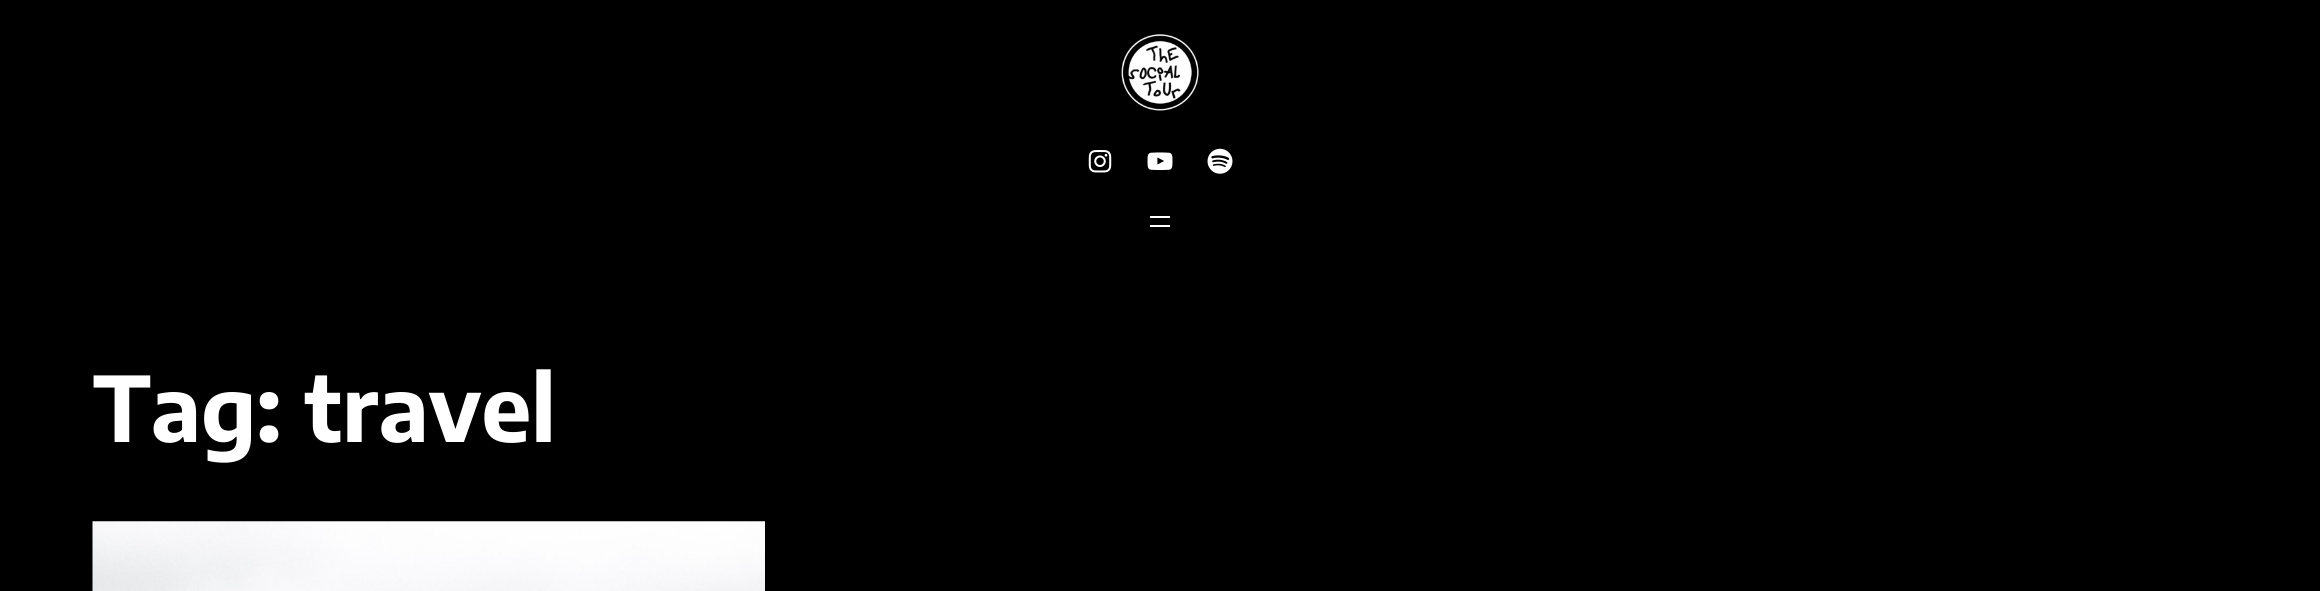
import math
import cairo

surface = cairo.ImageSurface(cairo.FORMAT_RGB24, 2320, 591)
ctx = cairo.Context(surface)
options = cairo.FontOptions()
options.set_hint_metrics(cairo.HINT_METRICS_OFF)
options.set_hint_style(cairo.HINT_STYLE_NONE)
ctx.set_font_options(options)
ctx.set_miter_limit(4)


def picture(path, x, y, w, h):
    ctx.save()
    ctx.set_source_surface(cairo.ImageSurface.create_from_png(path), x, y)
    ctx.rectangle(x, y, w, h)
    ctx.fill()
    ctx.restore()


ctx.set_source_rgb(0, 0, 0)
ctx.paint()
picture("img1.png", 1121, 34, 78, 77)
picture("img2.png", 1088, 150, 24, 23)
picture("img3.png", 1147, 152, 26, 19)
picture("img4.png", 1207, 148, 26, 26)
ctx.set_source_rgb(1, 1, 1)
ctx.rectangle(1150, 216, 20, 2)
ctx.fill()
ctx.rectangle(1150, 225, 20, 2)
ctx.fill()
ctx.select_font_face("Encode Sans", cairo.FONT_SLANT_NORMAL, cairo.FONT_WEIGHT_BOLD)
ctx.set_font_size(90)
ctx.move_to(93, 442)
ctx.show_text("Tag: travel")
picture("img5.png", 92, 521, 673, 70)
surface.write_to_png("page.png")
